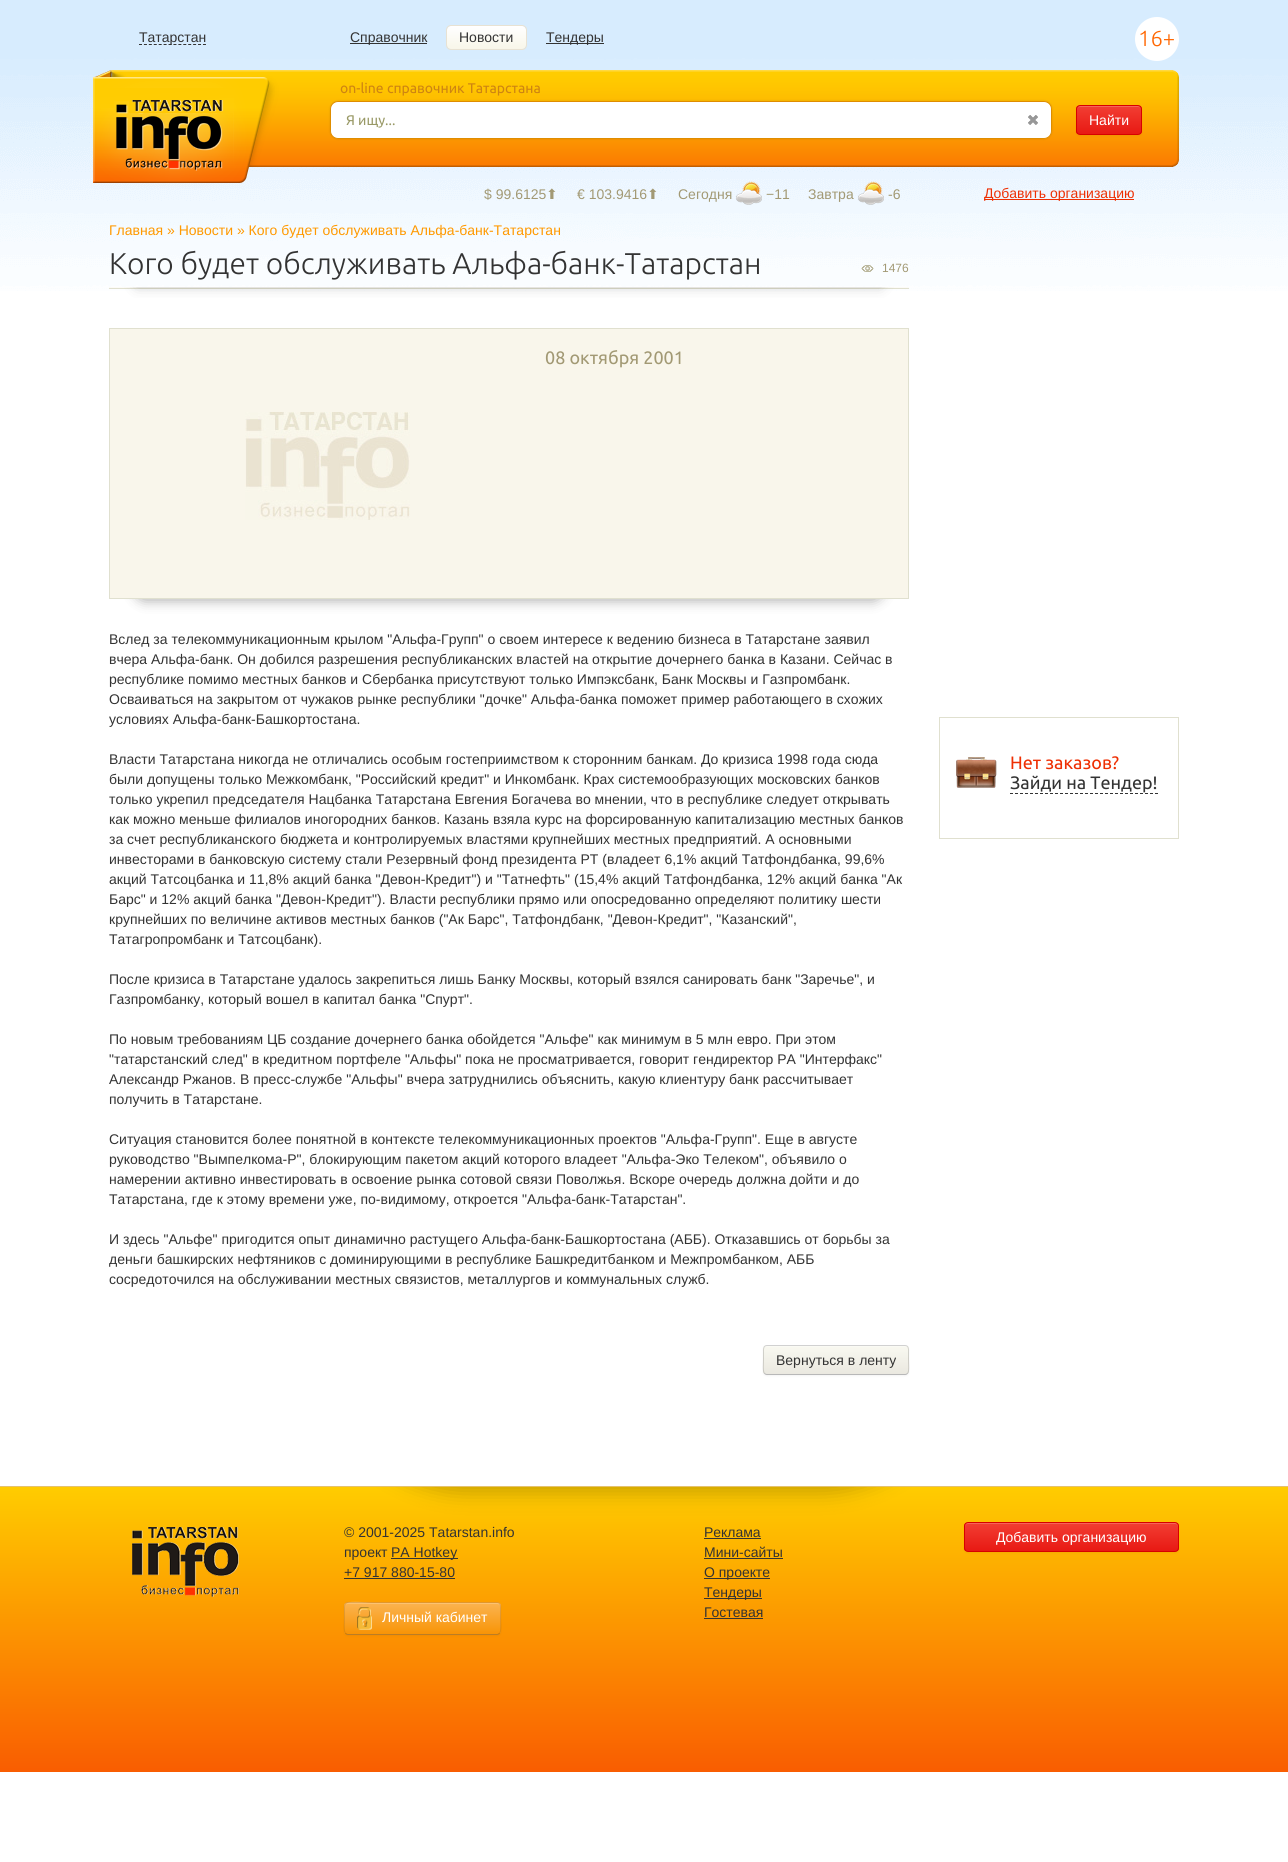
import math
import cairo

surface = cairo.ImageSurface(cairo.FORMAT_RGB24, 1288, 1862)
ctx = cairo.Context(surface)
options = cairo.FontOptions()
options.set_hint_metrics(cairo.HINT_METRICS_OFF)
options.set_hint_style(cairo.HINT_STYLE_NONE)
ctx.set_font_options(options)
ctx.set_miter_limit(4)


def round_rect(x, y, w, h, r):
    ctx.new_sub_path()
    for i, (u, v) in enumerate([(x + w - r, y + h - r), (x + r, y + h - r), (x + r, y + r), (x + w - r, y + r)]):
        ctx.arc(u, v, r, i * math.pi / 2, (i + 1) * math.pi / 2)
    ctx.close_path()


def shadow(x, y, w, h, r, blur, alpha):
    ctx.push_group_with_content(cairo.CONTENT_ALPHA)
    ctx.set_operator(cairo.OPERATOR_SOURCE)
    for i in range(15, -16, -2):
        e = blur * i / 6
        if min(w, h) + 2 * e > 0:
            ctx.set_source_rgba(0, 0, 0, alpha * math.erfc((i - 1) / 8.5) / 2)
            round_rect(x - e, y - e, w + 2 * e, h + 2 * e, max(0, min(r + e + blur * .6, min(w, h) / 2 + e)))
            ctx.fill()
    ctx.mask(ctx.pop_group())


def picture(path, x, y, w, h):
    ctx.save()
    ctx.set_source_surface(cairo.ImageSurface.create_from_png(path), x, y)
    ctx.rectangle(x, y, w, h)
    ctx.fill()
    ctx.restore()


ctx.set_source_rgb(1, 1, 1)
ctx.paint()
picture("img1.png", 0, 0, 1288, 291)
ctx.new_path()
ctx.move_to(139, 44.5)
ctx.line_to(206, 44.5)
ctx.set_source_rgb(0.2, 0.2, 0.2)
ctx.set_line_width(1)
ctx.set_dash([3, 1.92])
ctx.stroke()
ctx.select_font_face("Liberation Sans")
ctx.set_font_size(14)
ctx.move_to(139, 42)
ctx.show_text("Татарстан")
ctx.rectangle(350, 43, 77, 1)
ctx.fill()
ctx.move_to(350, 42)
ctx.show_text("Справочник")
gradient = cairo.LinearGradient(487, 26, 487, 49)
gradient.add_color_stop_rgba(0, 1, 1, 1, 1)
gradient.add_color_stop_rgba(1, 0.973, 0.965, 0.914, 1)
ctx.set_source(gradient)
round_rect(447, 26, 79, 23, 4)
ctx.fill()
round_rect(446.5, 25.5, 80, 24, 4.5)
ctx.set_source_rgb(0.91, 0.886, 0.827)
ctx.set_dash([])
ctx.stroke()
ctx.set_source_rgb(0.2, 0.2, 0.2)
ctx.move_to(459, 42)
ctx.show_text("Новости")
ctx.rectangle(546, 43, 58, 1)
ctx.fill()
ctx.move_to(546, 42)
ctx.show_text("Тендеры")
ctx.set_source_rgb(1, 1, 1)
ctx.new_path()
ctx.arc(1157, 39, 22, 0, 2 * math.pi)
ctx.fill()
ctx.select_font_face("Ubuntu Light")
ctx.set_font_size(22)
ctx.set_source_rgb(1, 0.4, 0)
ctx.move_to(1138, 46)
ctx.show_text("16+")
picture("img2.png", 93, 70, 1086, 117)
ctx.select_font_face("Ubuntu")
ctx.set_font_size(14)
ctx.set_source_rgb(0.804, 0.518, 0.071)
ctx.move_to(340, 93)
ctx.show_text("on-line справочник Татарстана")
ctx.set_source_rgb(0, 0, 0)
shadow(330, 101, 722, 38, 8, 1, 0.1)
ctx.set_source_rgb(1, 1, 1)
round_rect(330.5, 101.5, 721, 37, 7.5)
ctx.fill_preserve()
ctx.set_source_rgb(0.875, 0.553, 0)
ctx.stroke()
ctx.set_source_rgb(0.6, 0.6, 0.4)
ctx.move_to(346, 125)
ctx.show_text("Я ищу...")
picture("img3.png", 1028, 115, 10, 10)
ctx.set_source_rgb(0, 0, 0)
shadow(1076, 106, 66, 30, 4, 1, 0.05)
ctx.save()
round_rect(1076, 105, 66, 30, 4)
ctx.clip()
gradient = cairo.LinearGradient(1109, 106, 1109, 134)
gradient.add_color_stop_rgba(0, 0.949, 0.243, 0.2, 1)
gradient.add_color_stop_rgba(1, 0.91, 0.098, 0.075, 1)
ctx.set_source(gradient)
ctx.rectangle(1076, 106, 66, 28)
ctx.fill()
ctx.restore()
ctx.set_source_rgb(0.961, 0.392, 0.357)
ctx.new_path()
ctx.move_to(1080, 107)
ctx.line_to(1138, 107)
ctx.curve_to(1140, 107, 1141, 108, 1141, 110)
ctx.curve_to(1141, 104, 1133, 106, 1128, 106)
ctx.line_to(1090, 106)
ctx.curve_to(1085, 106, 1077, 104, 1077, 110)
ctx.curve_to(1077, 108, 1078, 107, 1080, 107)
ctx.close_path()
ctx.fill()
round_rect(1076.5, 105.5, 65, 29, 3.5)
ctx.set_source_rgb(0.843, 0, 0)
ctx.stroke()
ctx.select_font_face("Liberation Sans")
ctx.set_source_rgb(1, 1, 1)
ctx.move_to(1089, 125)
ctx.show_text("Найти")
ctx.set_source_rgb(0.635, 0.6, 0.455)
ctx.move_to(484, 199)
ctx.show_text("$ 99.6125")
ctx.select_font_face("DejaVu Sans")
ctx.move_to(546, 199)
ctx.show_text("⬆")
ctx.select_font_face("Liberation Sans")
ctx.move_to(577, 199)
ctx.show_text("€ 103.9416")
ctx.select_font_face("DejaVu Sans")
ctx.move_to(647, 199)
ctx.show_text("⬆")
ctx.select_font_face("Liberation Sans")
ctx.move_to(678, 199)
ctx.show_text("Сегодня")
picture("img4.png", 736, 181, 26, 24)
ctx.move_to(766, 199)
ctx.show_text("−11")
ctx.move_to(808, 199)
ctx.show_text("Завтра")
picture("img5.png", 858, 181, 26, 24)
ctx.move_to(888, 199)
ctx.show_text("-6")
ctx.set_source_rgb(0.933, 0.184, 0.012)
ctx.rectangle(984, 199, 150, 1)
ctx.fill()
ctx.move_to(984, 198)
ctx.show_text("Добавить организацию")
ctx.set_source_rgb(1, 0.6, 0)
ctx.move_to(109, 235)
ctx.show_text("Главная » Новости » Кого будет обслуживать Альфа-банк-Татарстан")
ctx.select_font_face("Ubuntu Light")
ctx.set_font_size(30)
ctx.set_source_rgb(0.2, 0.2, 0.2)
ctx.move_to(109, 274)
ctx.show_text("Кого будет обслуживать Альфа-банк-Татарстан")
ctx.set_source_rgb(0.988, 0.984, 0.965)
ctx.rectangle(109, 287, 800, 1)
ctx.fill()
ctx.set_source_rgb(0.878, 0.878, 0.812)
ctx.rectangle(109, 288, 800, 1)
ctx.fill()
picture("img6.png", 861, 265, 13, 7)
ctx.save()
ctx.rectangle(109, 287, 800, 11)
ctx.clip()
ctx.set_source_rgb(0, 0, 0)
shadow(139, 278, 740, 5, 2.5, 7.5, 0.35)
ctx.restore()
ctx.select_font_face("Liberation Sans")
ctx.set_font_size(12)
ctx.set_source_rgb(0.635, 0.6, 0.455)
ctx.move_to(882, 272)
ctx.show_text("1476")
ctx.set_source_rgb(0, 0, 0)
shadow(135, 466, 748, 134, 10, 6.5, 0.35)
ctx.set_source_rgb(0.973, 0.961, 0.918)
ctx.rectangle(109.5, 328.5, 799, 270)
ctx.fill_preserve()
ctx.set_source_rgb(0.878, 0.878, 0.812)
ctx.stroke()
ctx.select_font_face("Ubuntu")
ctx.set_font_size(18)
ctx.set_source_rgb(0.635, 0.6, 0.455)
ctx.move_to(545, 364)
ctx.show_text("08 октября 2001")
picture("img7.png", 245, 412, 165, 108)
ctx.select_font_face("Liberation Sans")
ctx.set_font_size(14)
ctx.set_source_rgb(0.2, 0.2, 0.2)
ctx.move_to(109, 644)
ctx.show_text("Вслед за телекоммуникационным крылом \"Альфа-Групп\" о своем интересе к ведению бизнеса в Татарстане заявил")
ctx.move_to(109, 664)
ctx.show_text("вчера Альфа-банк. Он добился разрешения республиканских властей на открытие дочернего банка в Казани. Сейчас в")
ctx.move_to(109, 684)
ctx.show_text("республике помимо местных банков и Сбербанка присутствуют только Импэксбанк, Банк Москвы и Газпромбанк.")
ctx.move_to(109, 704)
ctx.show_text("Осваиваться на закрытом от чужаков рынке республики \"дочке\" Альфа-банка поможет пример работающего в схожих")
ctx.move_to(109, 724)
ctx.show_text("условиях Альфа-банк-Башкортостана.")
ctx.move_to(109, 764)
ctx.show_text("Власти Татарстана никогда не отличались особым гостеприимством к сторонним банкам. До кризиса 1998 года сюда")
ctx.move_to(109, 784)
ctx.show_text("были допущены только Межкомбанк, \"Российский кредит\" и Инкомбанк. Крах системообразующих московских банков")
ctx.move_to(109, 804)
ctx.show_text("только укрепил председателя Нацбанка Татарстана Евгения Богачева во мнении, что в республике следует открывать")
ctx.move_to(109, 824)
ctx.show_text("как можно меньше филиалов иногородних банков. Казань взяла курс на форсированную капитализацию местных банков")
ctx.move_to(109, 844)
ctx.show_text("за счет республиканского бюджета и контролируемых властями крупнейших местных предприятий. А основными")
ctx.move_to(109, 864)
ctx.show_text("инвесторами в банковскую систему стали Резервный фонд президента РТ (владеет 6,1% акций Татфондбанка, 99,6%")
ctx.move_to(109, 884)
ctx.show_text("акций Татсоцбанка и 11,8% акций банка \"Девон-Кредит\") и \"Татнефть\" (15,4% акций Татфондбанка, 12% акций банка \"Ак")
ctx.move_to(109, 904)
ctx.show_text("Барс\" и 12% акций банка \"Девон-Кредит\"). Власти республики прямо или опосредованно определяют политику шести")
ctx.move_to(109, 924)
ctx.show_text("крупнейших по величине активов местных банков (\"Ак Барс\", Татфондбанк, \"Девон-Кредит\", \"Казанский\",")
ctx.move_to(109, 944)
ctx.show_text("Татагропромбанк и Татсоцбанк).")
ctx.move_to(109, 984)
ctx.show_text("После кризиса в Татарстане удалось закрепиться лишь Банку Москвы, который взялся санировать банк \"Заречье\", и")
ctx.move_to(109, 1004)
ctx.show_text("Газпромбанку, который вошел в капитал банка \"Спурт\".")
ctx.move_to(109, 1044)
ctx.show_text("По новым требованиям ЦБ создание дочернего банка обойдется \"Альфе\" как минимум в 5 млн евро. При этом")
ctx.move_to(109, 1064)
ctx.show_text("\"татарстанский след\" в кредитном портфеле \"Альфы\" пока не просматривается, говорит гендиректор РА \"Интерфакс\"")
ctx.move_to(109, 1084)
ctx.show_text("Александр Ржанов. В пресс-службе \"Альфы\" вчера затруднились объяснить, какую клиентуру банк рассчитывает")
ctx.move_to(109, 1104)
ctx.show_text("получить в Татарстане.")
ctx.move_to(109, 1144)
ctx.show_text("Ситуация становится более понятной в контексте телекоммуникационных проектов \"Альфа-Групп\". Еще в августе")
ctx.move_to(109, 1164)
ctx.show_text("руководство \"Вымпелкома-Р\", блокирующим пакетом акций которого владеет \"Альфа-Эко Телеком\", объявило о")
ctx.move_to(109, 1184)
ctx.show_text("намерении активно инвестировать в освоение рынка сотовой связи Поволжья. Вскоре очередь должна дойти и до")
ctx.move_to(109, 1204)
ctx.show_text("Татарстана, где к этому времени уже, по-видимому, откроется \"Альфа-банк-Татарстан\".")
ctx.move_to(109, 1244)
ctx.show_text("И здесь \"Альфе\" пригодится опыт динамично растущего Альфа-банк-Башкортостана (АББ). Отказавшись от борьбы за")
ctx.move_to(109, 1264)
ctx.show_text("деньги башкирских нефтяников с доминирующими в республике Башкредитбанком и Межпромбанком, АББ")
ctx.move_to(109, 1284)
ctx.show_text("сосредоточился на обслуживании местных связистов, металлургов и коммунальных служб.")
ctx.set_source_rgb(0, 0, 0)
shadow(763, 1346, 146, 30, 4, 1, 0.05)
ctx.set_source_rgb(0.961, 0.961, 0.961)
round_rect(763, 1345, 146, 30, 4)
ctx.fill()
ctx.save()
round_rect(763, 1345, 146, 30, 4)
ctx.clip()
gradient = cairo.LinearGradient(836, 1346, 836, 1374)
gradient.add_color_stop_rgba(0, 0.976, 0.976, 0.945, 1)
gradient.add_color_stop_rgba(1, 0.918, 0.91, 0.878, 1)
ctx.set_source(gradient)
ctx.rectangle(763, 1346, 146, 28)
ctx.fill()
ctx.restore()
ctx.set_source_rgb(0.98, 0.98, 0.957)
ctx.new_path()
ctx.move_to(767, 1347)
ctx.line_to(905, 1347)
ctx.curve_to(907, 1347, 908, 1348, 908, 1350)
ctx.line_to(908, 1349)
ctx.curve_to(908, 1347, 907, 1346, 905, 1346)
ctx.line_to(767, 1346)
ctx.curve_to(765, 1346, 764, 1347, 764, 1349)
ctx.line_to(764, 1350)
ctx.curve_to(764, 1348, 765, 1347, 767, 1347)
ctx.close_path()
ctx.fill()
ctx.new_path()
ctx.move_to(907.5, 1373.5)
ctx.curve_to(907, 1374, 906, 1374.5, 905, 1374.5)
ctx.line_to(767, 1374.5)
ctx.curve_to(766, 1374.5, 765, 1374, 764.5, 1373.5)
ctx.set_source_rgb(0.722, 0.722, 0.722)
ctx.stroke()
ctx.new_path()
ctx.move_to(764.5, 1373.5)
ctx.curve_to(762.5, 1371.5, 763.5, 1363, 763.5, 1360)
ctx.line_to(763.5, 1352.5)
ctx.curve_to(763.5, 1350, 763, 1345.5, 767, 1345.5)
ctx.line_to(905, 1345.5)
ctx.curve_to(909, 1345.5, 908.5, 1350, 908.5, 1352.5)
ctx.line_to(908.5, 1360)
ctx.curve_to(908.5, 1363, 909.5, 1371.5, 907.5, 1373.5)
ctx.set_source_rgba(0, 0, 0, 0.15)
ctx.stroke()
ctx.set_source_rgb(0.2, 0.2, 0.2)
ctx.move_to(776, 1365)
ctx.show_text("Вернуться в ленту")
ctx.rectangle(939.5, 717.5, 239, 121)
ctx.set_source_rgb(0.878, 0.878, 0.812)
ctx.stroke()
picture("img8.png", 956, 757, 41, 31)
ctx.select_font_face("Ubuntu")
ctx.set_font_size(18)
ctx.set_source_rgb(0.933, 0.184, 0.012)
ctx.move_to(1010, 769)
ctx.show_text("Нет заказов?")
ctx.set_source_rgb(0.2, 0.2, 0.2)
ctx.move_to(1010, 789)
ctx.show_text("Зайди на Тендер!")
ctx.new_path()
ctx.move_to(1010, 793.5)
ctx.line_to(1158, 793.5)
ctx.set_dash([3, 2])
ctx.stroke()
gradient = cairo.LinearGradient(644, 1487, 644, 1772)
gradient.add_color_stop_rgba(0, 1, 0.8, 0, 1)
gradient.add_color_stop_rgba(1, 0.976, 0.365, 0.004, 1)
ctx.set_source(gradient)
ctx.rectangle(0, 1487, 1288, 285)
ctx.fill()
ctx.set_source_rgb(0.894, 0.757, 0.435)
ctx.rectangle(0, 1486, 1288, 1)
ctx.fill()
ctx.set_source_rgb(0, 0, 0)
shadow(964, 1523, 215, 30, 4, 1, 0.05)
ctx.save()
round_rect(964, 1522, 215, 30, 4)
ctx.clip()
gradient = cairo.LinearGradient(1072, 1523, 1072, 1551)
gradient.add_color_stop_rgba(0, 0.949, 0.243, 0.2, 1)
gradient.add_color_stop_rgba(1, 0.91, 0.098, 0.075, 1)
ctx.set_source(gradient)
ctx.rectangle(964, 1523, 215, 28)
ctx.fill()
ctx.restore()
ctx.set_source_rgb(0.961, 0.392, 0.357)
ctx.new_path()
ctx.move_to(968, 1524)
ctx.line_to(1175, 1524)
ctx.curve_to(1177, 1524, 1178, 1525, 1178, 1527)
ctx.line_to(1178, 1526)
ctx.curve_to(1178, 1524, 1177, 1523, 1175, 1523)
ctx.line_to(968, 1523)
ctx.curve_to(966, 1523, 965, 1524, 965, 1526)
ctx.line_to(965, 1527)
ctx.curve_to(965, 1525, 966, 1524, 968, 1524)
ctx.close_path()
ctx.fill()
round_rect(964.5, 1522.5, 214, 29, 3.5)
ctx.set_source_rgb(0.843, 0, 0)
ctx.set_dash([])
ctx.stroke()
ctx.save()
ctx.rectangle(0, 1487, 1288, 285)
ctx.clip()
ctx.set_source_rgb(0, 0, 0)
shadow(315, 1180, 658, 314, 157, 10, 0.2)
ctx.restore()
picture("img9.png", 132, 1527, 107, 70)
ctx.select_font_face("Liberation Sans")
ctx.set_font_size(14)
ctx.set_source_rgb(0.2, 0.2, 0.2)
ctx.move_to(344, 1537)
ctx.show_text("© 2001-2025 Tatarstan.info")
ctx.move_to(344, 1557)
ctx.show_text("проект")
ctx.rectangle(391, 1558, 67, 1)
ctx.fill()
ctx.move_to(391, 1557)
ctx.show_text("РА Hotkey")
ctx.move_to(344, 1577)
ctx.show_text("+7 917 880-15-80")
ctx.rectangle(344, 1578, 111, 1)
ctx.fill()
ctx.set_source_rgb(0, 0, 0)
shadow(344, 1603, 157, 33, 4, 1, 0.05)
ctx.set_source_rgb(0.98, 0.655, 0.196)
round_rect(344, 1602, 157, 33, 4)
ctx.fill()
ctx.save()
round_rect(344, 1602, 157, 33, 4)
ctx.clip()
gradient = cairo.LinearGradient(423, 1603, 423, 1634)
gradient.add_color_stop_rgba(0, 0.984, 0.706, 0.314, 1)
gradient.add_color_stop_rgba(1, 0.973, 0.58, 0.024, 1)
ctx.set_source(gradient)
ctx.rectangle(344, 1603, 157, 31)
ctx.fill()
ctx.restore()
ctx.set_source_rgba(1, 1, 1, 0.2)
ctx.new_path()
ctx.move_to(348, 1604)
ctx.line_to(497, 1604)
ctx.curve_to(499, 1604, 500, 1605, 500, 1607)
ctx.curve_to(500, 1605, 500, 1604, 498, 1603)
ctx.line_to(373, 1603)
ctx.curve_to(365, 1603, 345, 1598, 345, 1607)
ctx.curve_to(345, 1605, 346, 1604, 348, 1604)
ctx.close_path()
ctx.fill()
ctx.new_path()
ctx.move_to(499.5, 1633.5)
ctx.curve_to(499, 1634, 498, 1634.5, 497, 1634.5)
ctx.line_to(348, 1634.5)
ctx.curve_to(347, 1634.5, 346, 1634, 345.5, 1633.5)
ctx.set_source_rgba(0, 0, 0, 0.25)
ctx.stroke()
ctx.new_path()
ctx.move_to(345.5, 1633.5)
ctx.curve_to(343.5, 1631.5, 344.5, 1621.5, 344.5, 1618.5)
ctx.line_to(344.5, 1610)
ctx.curve_to(344.5, 1607.5, 344, 1602.5, 348, 1602.5)
ctx.line_to(497, 1602.5)
ctx.curve_to(501, 1602.5, 500.5, 1607.5, 500.5, 1610)
ctx.line_to(500.5, 1618.5)
ctx.curve_to(500.5, 1621.5, 501.5, 1631.5, 499.5, 1633.5)
ctx.set_source_rgba(0, 0, 0, 0.1)
ctx.stroke()
picture("img10.png", 357, 1607, 15, 23)
ctx.set_source_rgb(1, 1, 1)
ctx.move_to(382, 1622)
ctx.show_text("Личный кабинет")
ctx.set_source_rgb(0.2, 0.2, 0.2)
ctx.move_to(704, 1537)
ctx.show_text("Реклама")
ctx.rectangle(704, 1538, 57, 1)
ctx.fill()
ctx.move_to(704, 1557)
ctx.show_text("Мини-сайты")
ctx.rectangle(704, 1558, 79, 1)
ctx.fill()
ctx.rectangle(704, 1578, 66, 1)
ctx.fill()
ctx.move_to(704, 1577)
ctx.show_text("О проекте")
ctx.rectangle(704, 1598, 58, 1)
ctx.fill()
ctx.move_to(704, 1597)
ctx.show_text("Тендеры")
ctx.move_to(704, 1617)
ctx.show_text("Гостевая")
ctx.rectangle(704, 1618, 59, 1)
ctx.fill()
ctx.set_source_rgb(1, 1, 1)
ctx.move_to(996, 1542)
ctx.show_text("Добавить организацию")
surface.write_to_png("page.png")
